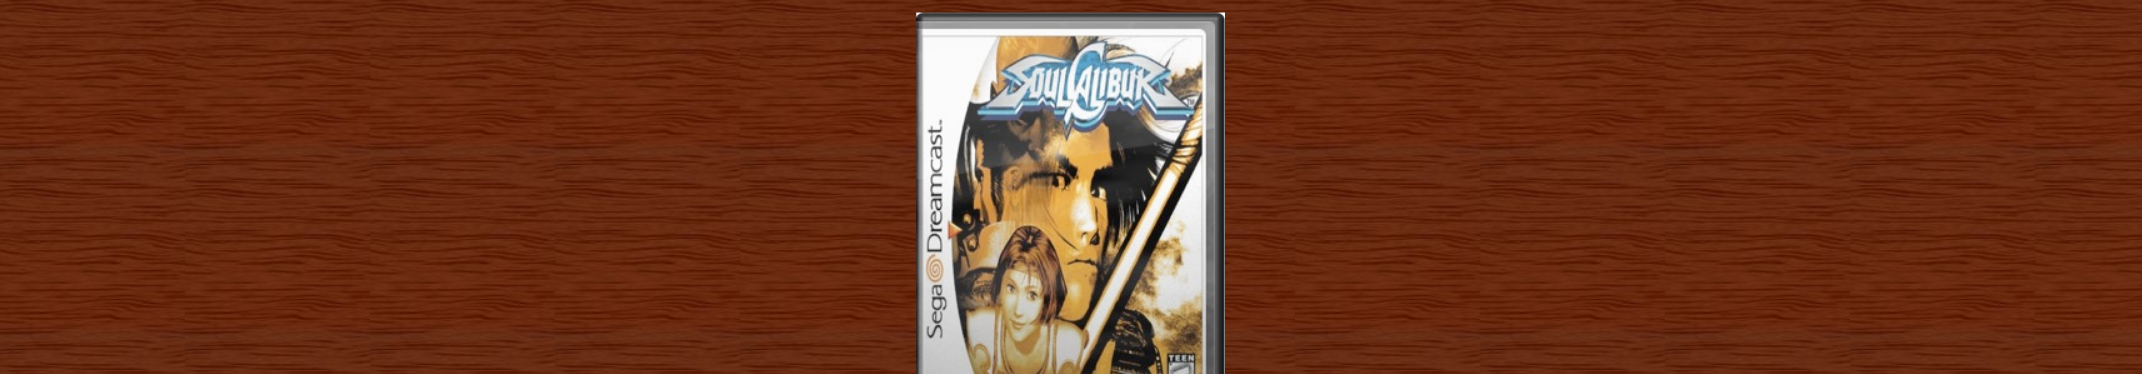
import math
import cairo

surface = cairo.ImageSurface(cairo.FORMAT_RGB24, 2142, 374)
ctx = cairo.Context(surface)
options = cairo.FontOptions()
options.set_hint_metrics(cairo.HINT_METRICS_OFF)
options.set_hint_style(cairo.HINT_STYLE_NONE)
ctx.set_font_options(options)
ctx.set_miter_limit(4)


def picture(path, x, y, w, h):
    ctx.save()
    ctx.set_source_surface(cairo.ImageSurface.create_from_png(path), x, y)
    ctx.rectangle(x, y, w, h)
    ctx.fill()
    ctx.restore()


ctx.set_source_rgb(1, 1, 1)
ctx.paint()
picture("img1.png", 0, 0, 2142, 374)
picture("img2.png", 916, 12, 309, 362)
surface.write_to_png("page.png")
